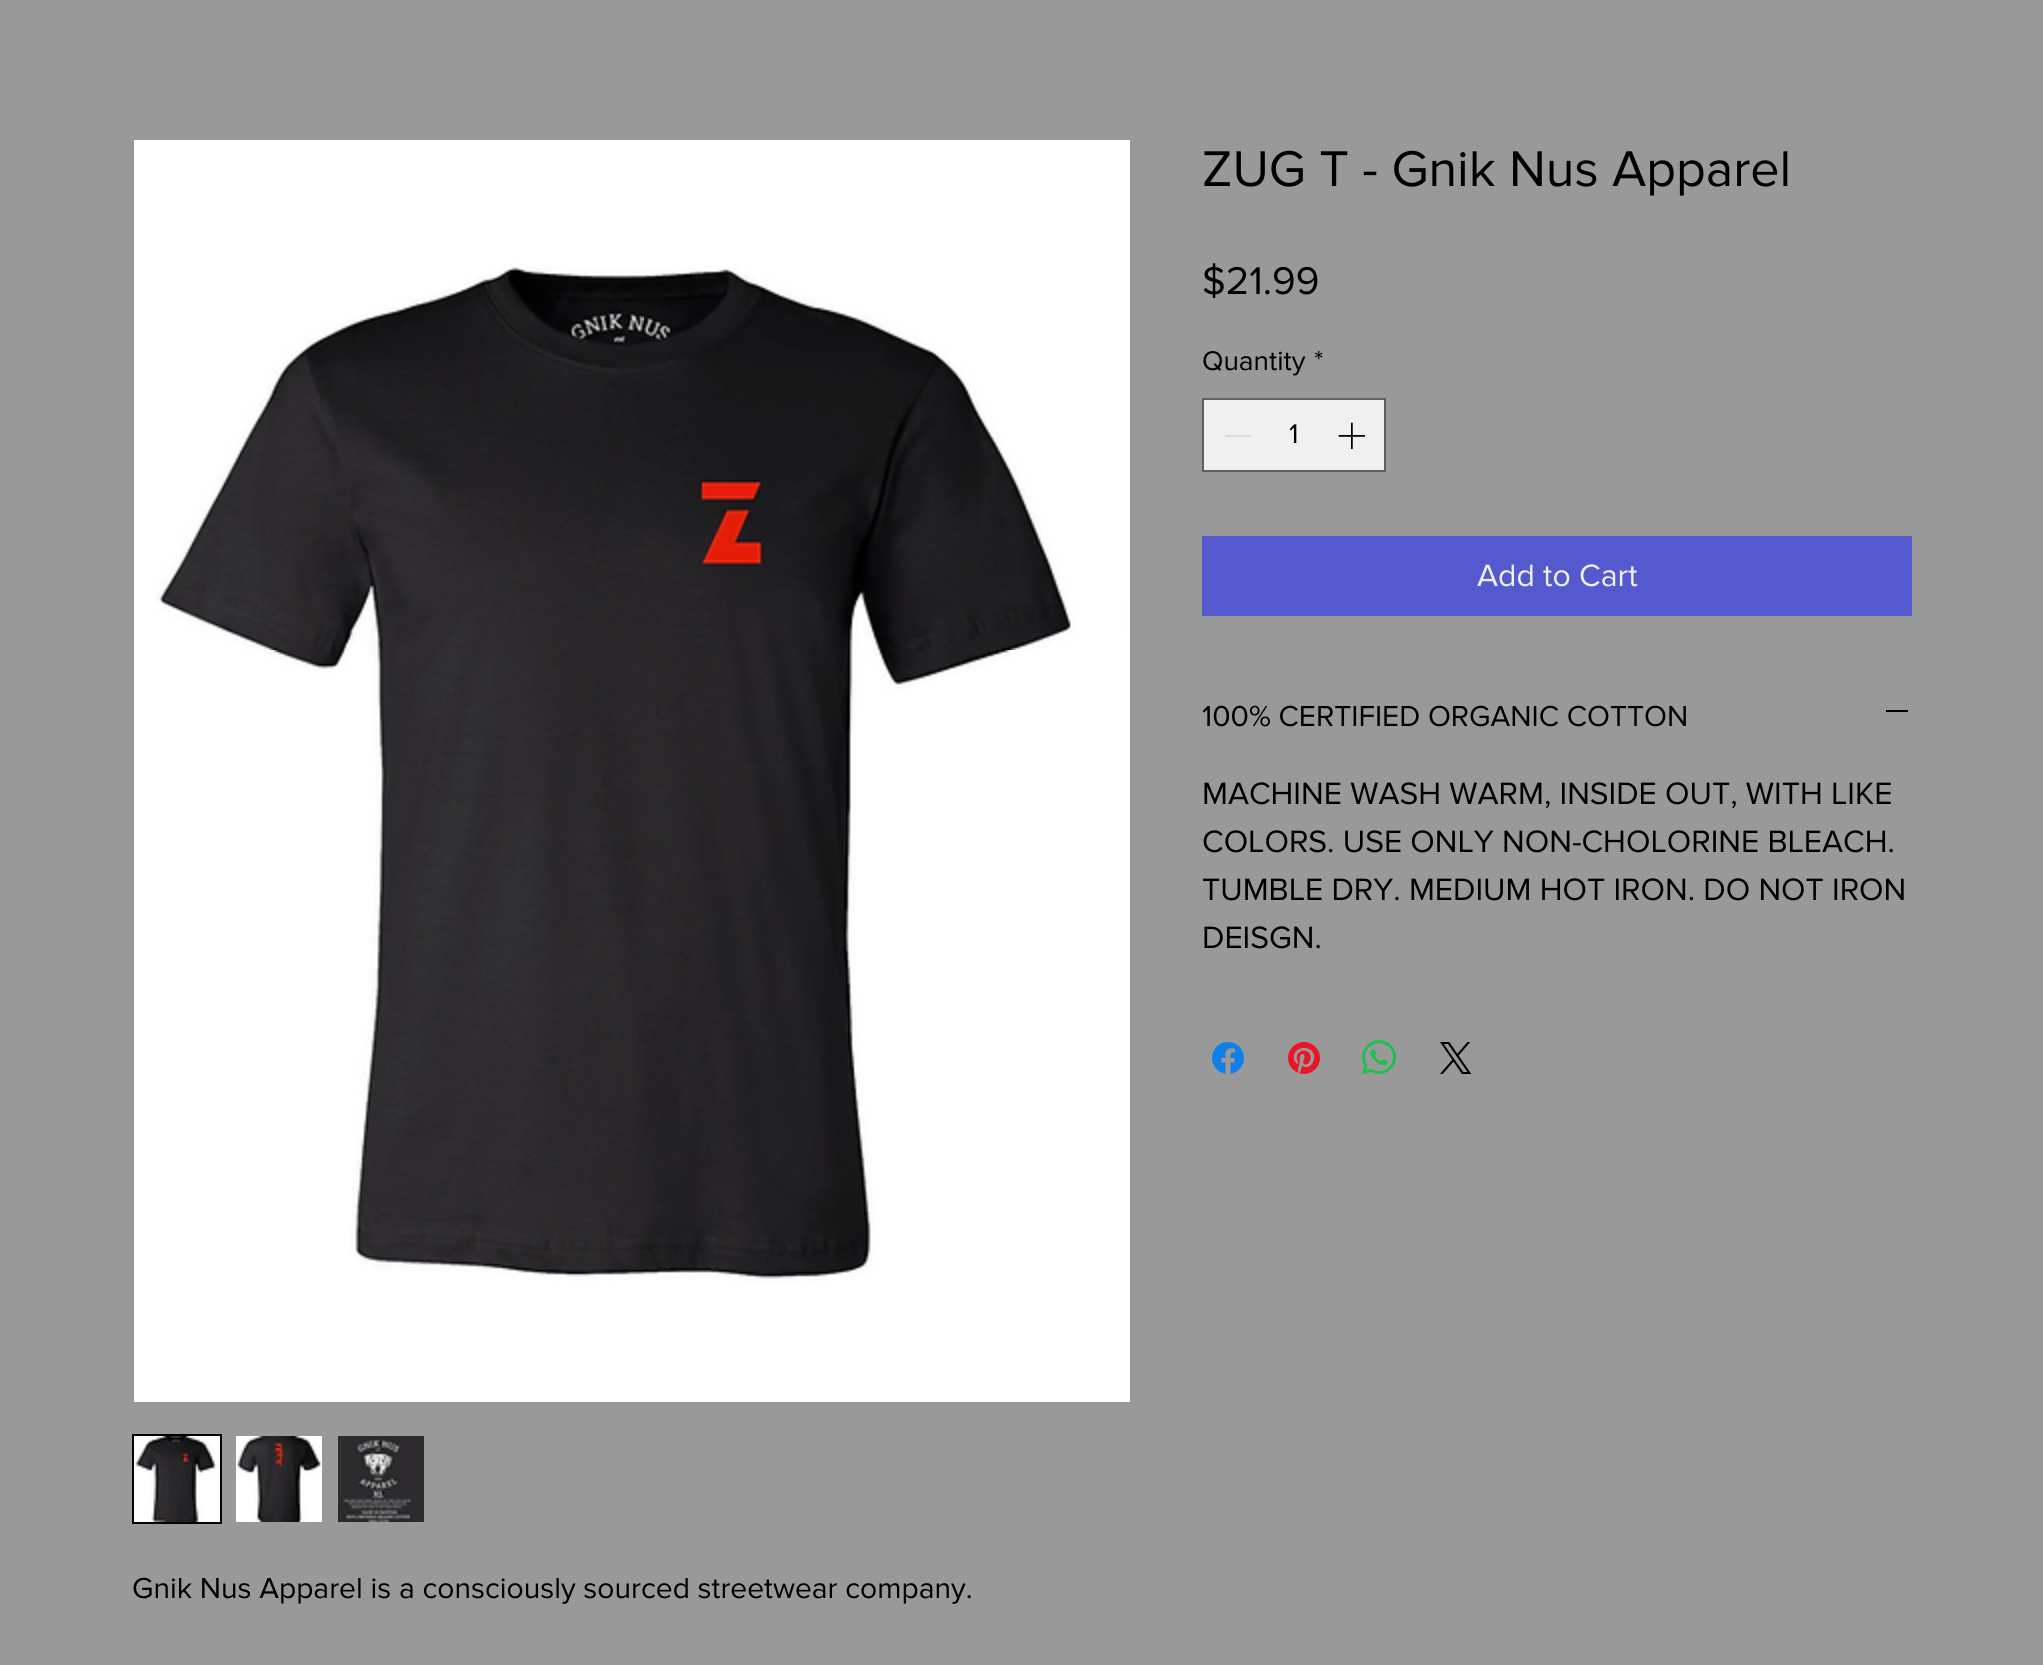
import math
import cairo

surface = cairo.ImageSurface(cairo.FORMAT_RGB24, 2043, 1665)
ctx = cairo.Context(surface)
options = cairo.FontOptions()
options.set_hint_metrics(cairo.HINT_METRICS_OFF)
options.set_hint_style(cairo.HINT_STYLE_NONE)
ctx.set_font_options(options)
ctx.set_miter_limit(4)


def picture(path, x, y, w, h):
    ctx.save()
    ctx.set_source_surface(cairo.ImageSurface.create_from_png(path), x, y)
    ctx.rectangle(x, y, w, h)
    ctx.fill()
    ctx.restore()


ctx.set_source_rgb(0.6, 0.6, 0.6)
ctx.paint()
ctx.select_font_face("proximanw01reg")
ctx.set_font_size(52)
ctx.set_source_rgb(0, 0, 0)
ctx.move_to(1202, 186)
ctx.show_text("ZUG T - Gnik Nus Apparel")
ctx.set_font_size(40)
ctx.move_to(1202, 294)
ctx.show_text("$21.99")
ctx.set_font_size(28)
ctx.move_to(1202, 370)
ctx.show_text("Quantity")
ctx.move_to(1314, 370)
ctx.show_text("*")
ctx.set_source_rgb(0.941, 0.941, 0.941)
ctx.rectangle(1203, 399, 182, 72)
ctx.fill_preserve()
ctx.set_source_rgb(0.376, 0.376, 0.376)
ctx.stroke()
ctx.set_source_rgb(0.863, 0.863, 0.863)
ctx.rectangle(1225, 435, 26, 2)
ctx.fill()
ctx.set_source_rgb(0, 0, 0)
ctx.move_to(1289, 443)
ctx.show_text("1")
picture("img1.png", 1338, 422, 27, 27)
ctx.set_source_rgb(0.329, 0.353, 0.804)
ctx.rectangle(1202, 536, 710, 80)
ctx.fill()
ctx.set_font_size(32)
ctx.set_source_rgb(0.941, 0.941, 0.941)
ctx.move_to(1477, 586)
ctx.show_text("Add to Cart")
ctx.set_font_size(30)
ctx.set_source_rgb(0, 0, 0)
ctx.move_to(1202, 726)
ctx.show_text("100% CERTIFIED ORGANIC COTTON")
ctx.rectangle(1886, 710, 22, 2)
ctx.fill()
ctx.set_font_size(32)
ctx.move_to(1202, 804)
ctx.show_text("MACHINE WASH WARM, INSIDE OUT, WITH LIKE")
ctx.move_to(1202, 852)
ctx.show_text("COLORS. USE ONLY NON-CHOLORINE BLEACH.")
ctx.move_to(1202, 900)
ctx.show_text("TUMBLE DRY. MEDIUM HOT IRON. DO NOT IRON")
ctx.move_to(1202, 948)
ctx.show_text("DEISGN.")
picture("img2.png", 1212, 1042, 32, 32)
picture("img3.png", 1288, 1042, 32, 32)
picture("img4.png", 1362, 1040, 34, 35)
picture("img5.png", 1440, 1042, 32, 32)
picture("img6.png", 134, 140, 996, 1262)
ctx.rectangle(133, 1435, 88, 88)
ctx.stroke()
picture("img7.png", 134, 1436, 86, 86)
picture("img8.png", 236, 1436, 86, 86)
picture("img9.png", 338, 1436, 86, 86)
ctx.set_font_size(30)
ctx.move_to(132, 1598)
ctx.show_text("Gnik Nus Apparel is a consciously sourced streetwear company.")
surface.write_to_png("page.png")
